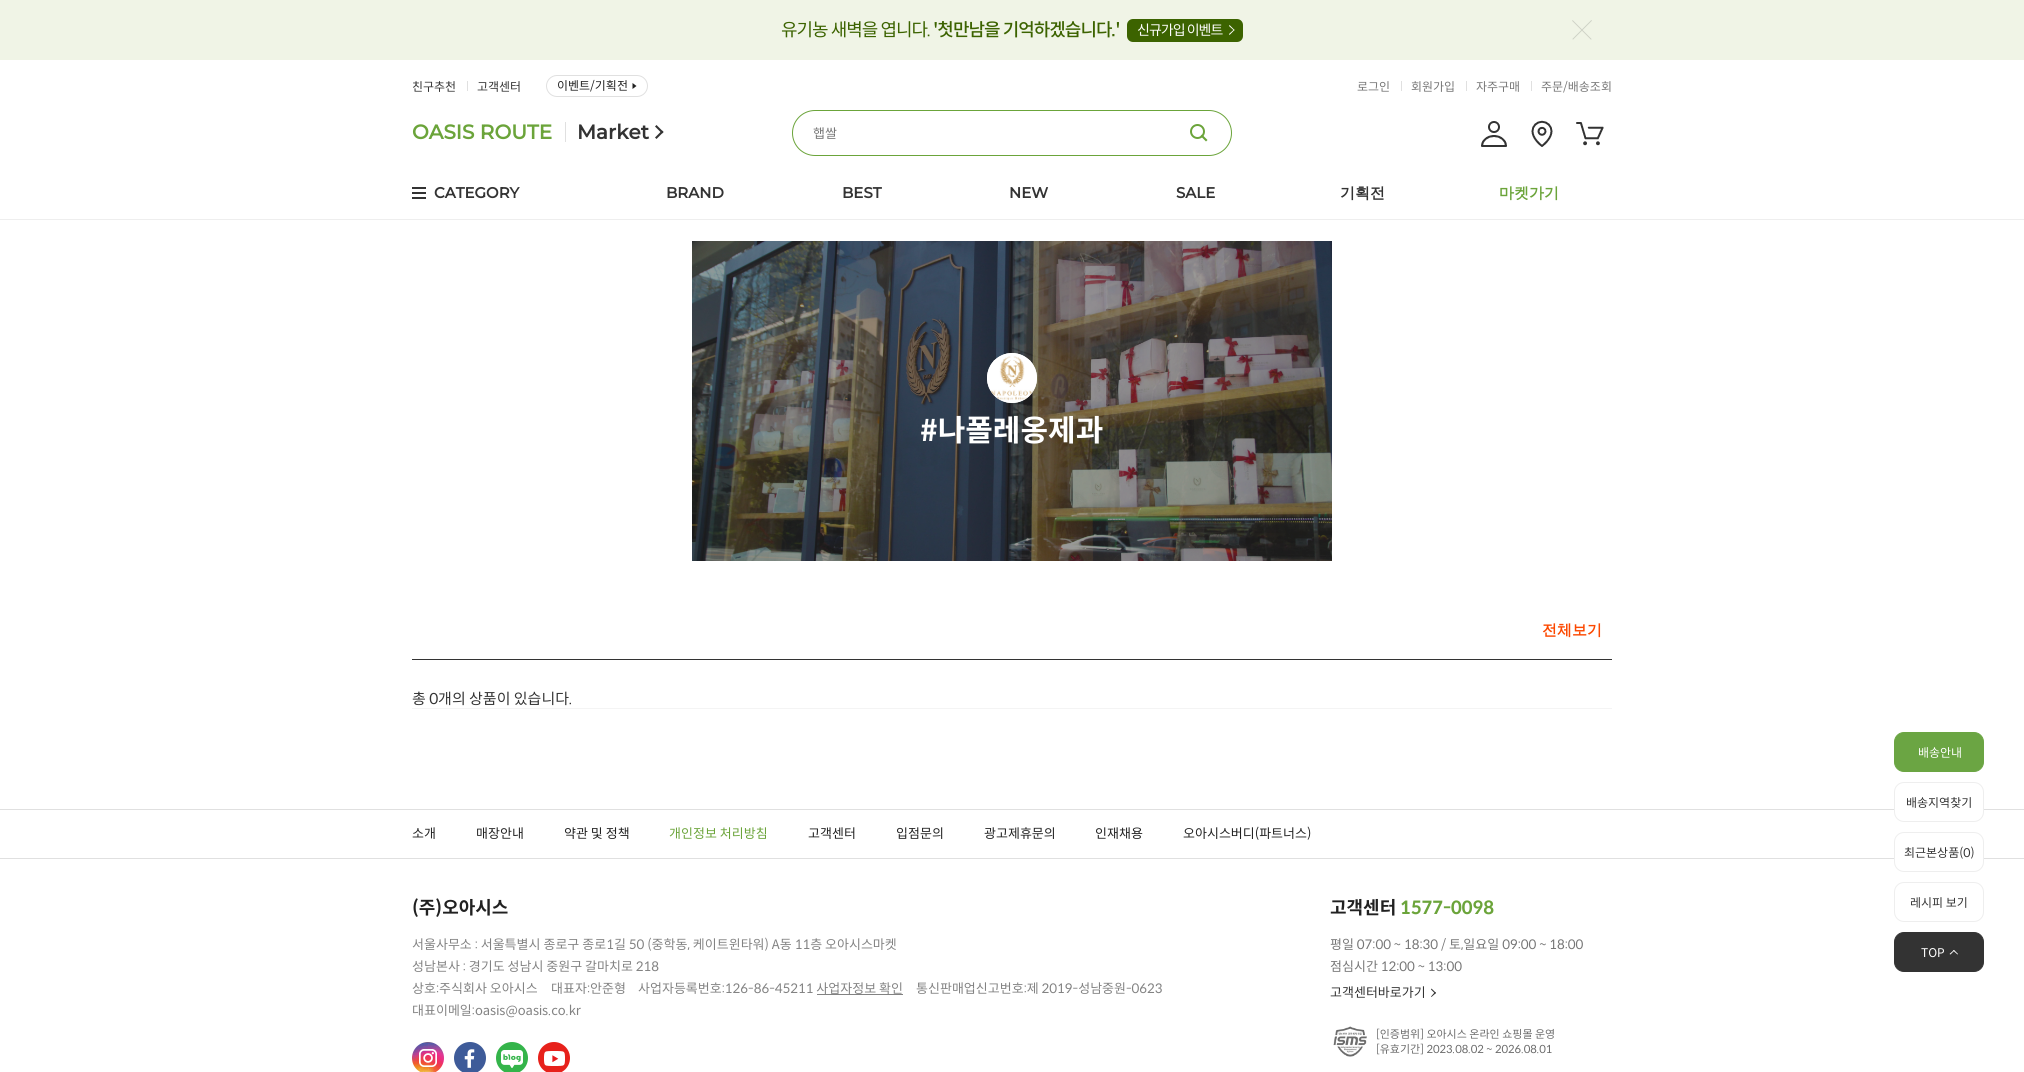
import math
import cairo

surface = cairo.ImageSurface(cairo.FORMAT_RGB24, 2024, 1072)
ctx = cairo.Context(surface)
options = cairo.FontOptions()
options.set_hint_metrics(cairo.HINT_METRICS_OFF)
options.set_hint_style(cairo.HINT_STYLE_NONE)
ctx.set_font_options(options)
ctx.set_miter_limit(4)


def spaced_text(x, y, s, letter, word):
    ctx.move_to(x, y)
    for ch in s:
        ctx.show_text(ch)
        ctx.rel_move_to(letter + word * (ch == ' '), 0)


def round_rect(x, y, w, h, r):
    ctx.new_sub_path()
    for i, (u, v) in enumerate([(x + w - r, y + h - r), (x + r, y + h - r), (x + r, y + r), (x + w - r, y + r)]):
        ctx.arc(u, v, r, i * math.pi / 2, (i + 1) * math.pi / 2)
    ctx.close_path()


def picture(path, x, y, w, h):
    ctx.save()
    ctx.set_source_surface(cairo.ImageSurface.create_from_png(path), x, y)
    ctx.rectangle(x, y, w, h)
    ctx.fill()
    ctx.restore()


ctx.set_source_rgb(1, 1, 1)
ctx.paint()
ctx.set_source_rgb(0.941, 0.957, 0.902)
ctx.rectangle(0, 0, 2024, 60)
ctx.fill()
ctx.select_font_face("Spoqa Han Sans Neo")
ctx.set_font_size(18)
ctx.set_source_rgb(0.235, 0.388, 0)
spaced_text(781, 36, "유기농 새벽을 엽니다.", -1, 0)
ctx.select_font_face("Spoqa Han Sans Neo Medium")
spaced_text(933, 36, "'첫만남을 기억하겠습니다.'", -1, 0)
round_rect(1127, 19, 116, 23, 6)
ctx.fill()
ctx.select_font_face("Spoqa Han Sans Neo")
ctx.set_font_size(14)
ctx.set_source_rgb(1, 1, 1)
spaced_text(1137, 35, "신규가입 이벤트", -1, 0)
ctx.new_path()
ctx.move_to(1229.5, 25)
ctx.line_to(1234.5, 30)
ctx.line_to(1234, 30.5)
ctx.line_to(1229, 26)
ctx.close_path()
ctx.fill()
ctx.new_path()
ctx.move_to(1234, 29.5)
ctx.line_to(1234.5, 30)
ctx.line_to(1229.5, 35)
ctx.line_to(1229, 34)
ctx.close_path()
ctx.fill()
picture("img1.png", 1572, 20, 20, 20)
ctx.set_font_size(12)
ctx.set_source_rgb(0.2, 0.2, 0.2)
ctx.move_to(412, 91)
ctx.show_text("친구추천")
ctx.set_source_rgb(0.878, 0.878, 0.878)
ctx.rectangle(467, 81, 1, 10)
ctx.fill()
ctx.set_source_rgb(0.2, 0.2, 0.2)
ctx.move_to(477, 91)
ctx.show_text("고객센터")
round_rect(546.5, 75.5, 101, 21, 10.5)
ctx.set_source_rgb(0.878, 0.878, 0.878)
ctx.set_line_width(1)
ctx.stroke()
ctx.set_source_rgb(0.129, 0.129, 0.129)
ctx.move_to(557, 90)
ctx.show_text("이벤트/기획전")
ctx.new_path()
ctx.move_to(632.5, 89)
ctx.line_to(632.5, 83)
ctx.line_to(636.5, 86)
ctx.close_path()
ctx.fill()
ctx.set_source_rgb(0.463, 0.463, 0.463)
ctx.move_to(1357, 91)
ctx.show_text("로그인")
ctx.set_source_rgb(0.878, 0.878, 0.878)
ctx.rectangle(1401, 81, 1, 10)
ctx.fill()
ctx.set_source_rgb(0.463, 0.463, 0.463)
ctx.move_to(1411, 91)
ctx.show_text("회원가입")
ctx.set_source_rgb(0.878, 0.878, 0.878)
ctx.rectangle(1466, 81, 1, 10)
ctx.fill()
ctx.set_source_rgb(0.463, 0.463, 0.463)
ctx.move_to(1476, 91)
ctx.show_text("자주구매")
ctx.set_source_rgb(0.878, 0.878, 0.878)
ctx.rectangle(1531, 81, 1, 10)
ctx.fill()
ctx.set_source_rgb(0.463, 0.463, 0.463)
ctx.move_to(1541, 91)
ctx.show_text("주문/배송조회")
ctx.select_font_face("Montserrat", cairo.FONT_SLANT_NORMAL, cairo.FONT_WEIGHT_BOLD)
ctx.set_font_size(20)
ctx.set_source_rgb(0.42, 0.643, 0.227)
ctx.move_to(412, 139)
ctx.show_text("OASIS ROUTE")
ctx.set_source_rgb(0.878, 0.878, 0.878)
ctx.rectangle(565, 122, 1, 20)
ctx.fill()
ctx.set_source_rgb(0.2, 0.2, 0.2)
ctx.move_to(577, 139)
ctx.show_text("Market")
ctx.new_path()
ctx.move_to(663.5, 132)
ctx.line_to(656.5, 139)
ctx.line_to(655, 137.5)
ctx.line_to(662, 130.5)
ctx.close_path()
ctx.fill()
ctx.new_path()
ctx.move_to(663.5, 132)
ctx.line_to(662, 133.5)
ctx.line_to(655, 126.5)
ctx.line_to(656.5, 125)
ctx.close_path()
ctx.fill()
round_rect(792.5, 110.5, 439, 45, 22.5)
ctx.set_source_rgb(0.42, 0.643, 0.227)
ctx.stroke()
ctx.select_font_face("Spoqa Han Sans Neo")
ctx.set_font_size(13)
ctx.set_source_rgb(0.463, 0.463, 0.463)
ctx.move_to(813, 138)
ctx.show_text("햅쌀")
ctx.new_path()
ctx.arc(1197.5, 131.5, 6.5, 0, 2 * math.pi)
ctx.set_source_rgb(0.42, 0.643, 0.227)
ctx.set_line_width(2)
ctx.stroke()
ctx.new_path()
ctx.move_to(1202, 134.5)
ctx.line_to(1207.5, 140)
ctx.line_to(1206, 141.5)
ctx.line_to(1200.5, 136)
ctx.close_path()
ctx.fill()
picture("img2.png", 1481, 121, 26, 26)
picture("img3.png", 1531, 120, 22, 27)
picture("img4.png", 1576, 122, 28, 24)
picture("img5.png", 412, 187, 14, 12)
ctx.select_font_face("Montserrat", cairo.FONT_SLANT_NORMAL, cairo.FONT_WEIGHT_BOLD)
ctx.set_font_size(15)
ctx.set_source_rgb(0.2, 0.2, 0.2)
ctx.move_to(434, 198)
ctx.show_text("CATEGORY")
ctx.move_to(666, 198)
ctx.show_text("BRAND")
ctx.move_to(842, 198)
ctx.show_text("BEST")
ctx.move_to(1009, 198)
ctx.show_text("NEW")
ctx.move_to(1176, 198)
ctx.show_text("SALE")
ctx.select_font_face("WenQuanYi Zen Hei", cairo.FONT_SLANT_NORMAL, cairo.FONT_WEIGHT_BOLD)
ctx.move_to(1340, 198)
ctx.show_text("기획전")
ctx.set_source_rgb(0.42, 0.643, 0.227)
ctx.move_to(1499, 198)
ctx.show_text("마켓가기")
ctx.set_source_rgb(0.933, 0.933, 0.933)
ctx.rectangle(0, 219, 2024, 1)
ctx.fill()
ctx.set_source_rgb(0.42, 0.647, 0.263)
round_rect(1894.5, 732.5, 89, 39, 9.5)
ctx.fill_preserve()
ctx.set_line_width(1)
ctx.stroke()
ctx.select_font_face("Spoqa Han Sans Neo")
ctx.set_font_size(12)
ctx.set_source_rgb(1, 1, 1)
ctx.move_to(1918, 757)
ctx.show_text("배송안내")
ctx.set_source_rgb(0.878, 0.878, 0.878)
ctx.rectangle(0, 809, 2024, 1)
ctx.fill()
ctx.set_source_rgb(1, 1, 1)
round_rect(1894.5, 782.5, 89, 39, 9.5)
ctx.fill_preserve()
ctx.set_source_rgb(0.933, 0.933, 0.933)
ctx.stroke()
ctx.set_source_rgb(0.2, 0.2, 0.2)
ctx.move_to(1906, 807)
ctx.show_text("배송지역찾기")
ctx.set_source_rgb(0.878, 0.878, 0.878)
ctx.rectangle(0, 858, 2024, 1)
ctx.fill()
ctx.set_source_rgb(1, 1, 1)
round_rect(1894.5, 832.5, 89, 39, 9.5)
ctx.fill_preserve()
ctx.set_source_rgb(0.933, 0.933, 0.933)
ctx.stroke()
ctx.set_source_rgb(0.2, 0.2, 0.2)
ctx.move_to(1904, 857)
ctx.show_text("최근본상품(0)")
round_rect(1894.5, 882.5, 89, 39, 9.5)
ctx.set_source_rgb(0.933, 0.933, 0.933)
ctx.stroke()
ctx.set_source_rgb(0.2, 0.2, 0.2)
ctx.move_to(1910, 907)
ctx.show_text("레시피 보기")
round_rect(1894.5, 932.5, 89, 39, 9.5)
ctx.fill_preserve()
ctx.stroke()
ctx.set_source_rgb(1, 1, 1)
ctx.move_to(1921, 957)
ctx.show_text("TOP")
ctx.new_path()
ctx.move_to(1949.5, 954)
ctx.line_to(1954, 950)
ctx.line_to(1954.5, 950.5)
ctx.line_to(1950.5, 954.5)
ctx.close_path()
ctx.fill()
ctx.new_path()
ctx.move_to(1953, 950.5)
ctx.line_to(1954, 950)
ctx.line_to(1958, 954)
ctx.line_to(1957.5, 954.5)
ctx.close_path()
ctx.fill()
picture("img6.png", 692, 241, 640, 320)
ctx.arc(1012, 378, 25, 0, 2 * math.pi)
ctx.fill()
picture("img7.png", 987, 353, 50, 50)
ctx.select_font_face("Spoqa Han Sans Neo", cairo.FONT_SLANT_NORMAL, cairo.FONT_WEIGHT_BOLD)
ctx.set_font_size(30)
ctx.move_to(920, 441)
ctx.show_text("#나폴레옹제과")
ctx.set_source_rgb(0.2, 0.2, 0.2)
ctx.rectangle(412, 659, 1200, 1)
ctx.fill()
ctx.select_font_face("WenQuanYi Zen Hei", cairo.FONT_SLANT_NORMAL, cairo.FONT_WEIGHT_BOLD)
ctx.set_font_size(15)
ctx.set_source_rgb(0.988, 0.282, 0)
ctx.move_to(1542, 635)
ctx.show_text("전체보기")
ctx.select_font_face("Spoqa Han Sans Neo")
ctx.set_source_rgb(0.2, 0.2, 0.2)
ctx.move_to(412, 704)
ctx.show_text("총 0개의 상품이 있습니다.")
ctx.set_source_rgb(0.957, 0.957, 0.957)
ctx.rectangle(412, 708, 1200, 1)
ctx.fill()
ctx.set_font_size(13)
ctx.set_source_rgb(0.129, 0.129, 0.129)
ctx.move_to(412, 838)
ctx.show_text("소개")
ctx.move_to(476, 838)
ctx.show_text("매장안내")
ctx.move_to(564, 838)
ctx.show_text("약관 및 정책")
ctx.set_source_rgb(0.42, 0.643, 0.227)
ctx.move_to(669, 838)
ctx.show_text("개인정보 처리방침")
ctx.set_source_rgb(0.129, 0.129, 0.129)
ctx.move_to(808, 838)
ctx.show_text("고객센터")
ctx.move_to(896, 838)
ctx.show_text("입점문의")
ctx.move_to(984, 838)
ctx.show_text("광고제휴문의")
ctx.move_to(1095, 838)
ctx.show_text("인재채용")
ctx.move_to(1183, 838)
ctx.show_text("오아시스버디(파트너스)")
ctx.select_font_face("Spoqa Han Sans Neo", cairo.FONT_SLANT_NORMAL, cairo.FONT_WEIGHT_BOLD)
ctx.set_font_size(18)
ctx.move_to(412, 914)
ctx.show_text("(주)오아시스")
ctx.select_font_face("Spoqa Han Sans Neo")
ctx.set_font_size(13)
ctx.set_source_rgb(0.51, 0.51, 0.51)
ctx.move_to(412, 949)
ctx.show_text("서울사무소 : 서울특별시 종로구 종로1길 50 (중학동, 케이트윈타워) A동 11층 오아시스마켓")
ctx.move_to(412, 971)
ctx.show_text("성남본사 : 경기도 성남시 중원구 갈마치로 218")
ctx.move_to(412, 993)
ctx.show_text("상호:주식회사 오아시스")
ctx.move_to(551, 993)
ctx.show_text("대표자:안준형")
ctx.move_to(638, 993)
ctx.show_text("사업자등록번호:126-86-45211 사업자정보 확인")
ctx.rectangle(817, 994, 86, 1)
ctx.fill()
ctx.move_to(916, 993)
ctx.show_text("통신판매업신고번호:제 2019-성남중원-0623")
ctx.move_to(412, 1015)
ctx.show_text("대표이메일:oasis@oasis.co.kr")
picture("img8.png", 412, 1042, 32, 30)
picture("img9.png", 454, 1042, 32, 30)
picture("img10.png", 496, 1042, 32, 30)
picture("img11.png", 538, 1042, 32, 30)
ctx.select_font_face("Spoqa Han Sans Neo", cairo.FONT_SLANT_NORMAL, cairo.FONT_WEIGHT_BOLD)
ctx.set_font_size(18)
ctx.set_source_rgb(0.129, 0.129, 0.129)
ctx.move_to(1330, 914)
ctx.show_text("고객센터")
ctx.set_source_rgb(0.42, 0.643, 0.227)
ctx.move_to(1400, 914)
ctx.show_text("1577-0098")
ctx.select_font_face("Spoqa Han Sans Neo")
ctx.set_font_size(13)
ctx.set_source_rgb(0.463, 0.463, 0.463)
ctx.move_to(1330, 949)
ctx.show_text("평일 07:00 ~ 18:30 / 토,일요일 09:00 ~ 18:00")
ctx.move_to(1330, 971)
ctx.show_text("점심시간 12:00 ~ 13:00")
ctx.set_source_rgb(0.2, 0.2, 0.2)
ctx.move_to(1330, 997)
ctx.show_text("고객센터바로가기")
ctx.new_path()
ctx.move_to(1431, 989.5)
ctx.line_to(1431.5, 988.5)
ctx.line_to(1436, 993)
ctx.line_to(1435, 993.5)
ctx.close_path()
ctx.fill()
ctx.new_path()
ctx.move_to(1431, 996.5)
ctx.line_to(1435, 992)
ctx.line_to(1436, 993)
ctx.line_to(1431.5, 997)
ctx.close_path()
ctx.fill()
picture("img12.png", 1333, 1026, 34, 31)
ctx.set_font_size(11)
ctx.set_source_rgb(0.42, 0.42, 0.42)
ctx.move_to(1376, 1038)
ctx.show_text("[인증범위] 오아시스 온라인 쇼핑몰 운영")
ctx.move_to(1376, 1053)
ctx.show_text("[유효기간] 2023.08.02 ~ 2026.08.01")
surface.write_to_png("page.png")
